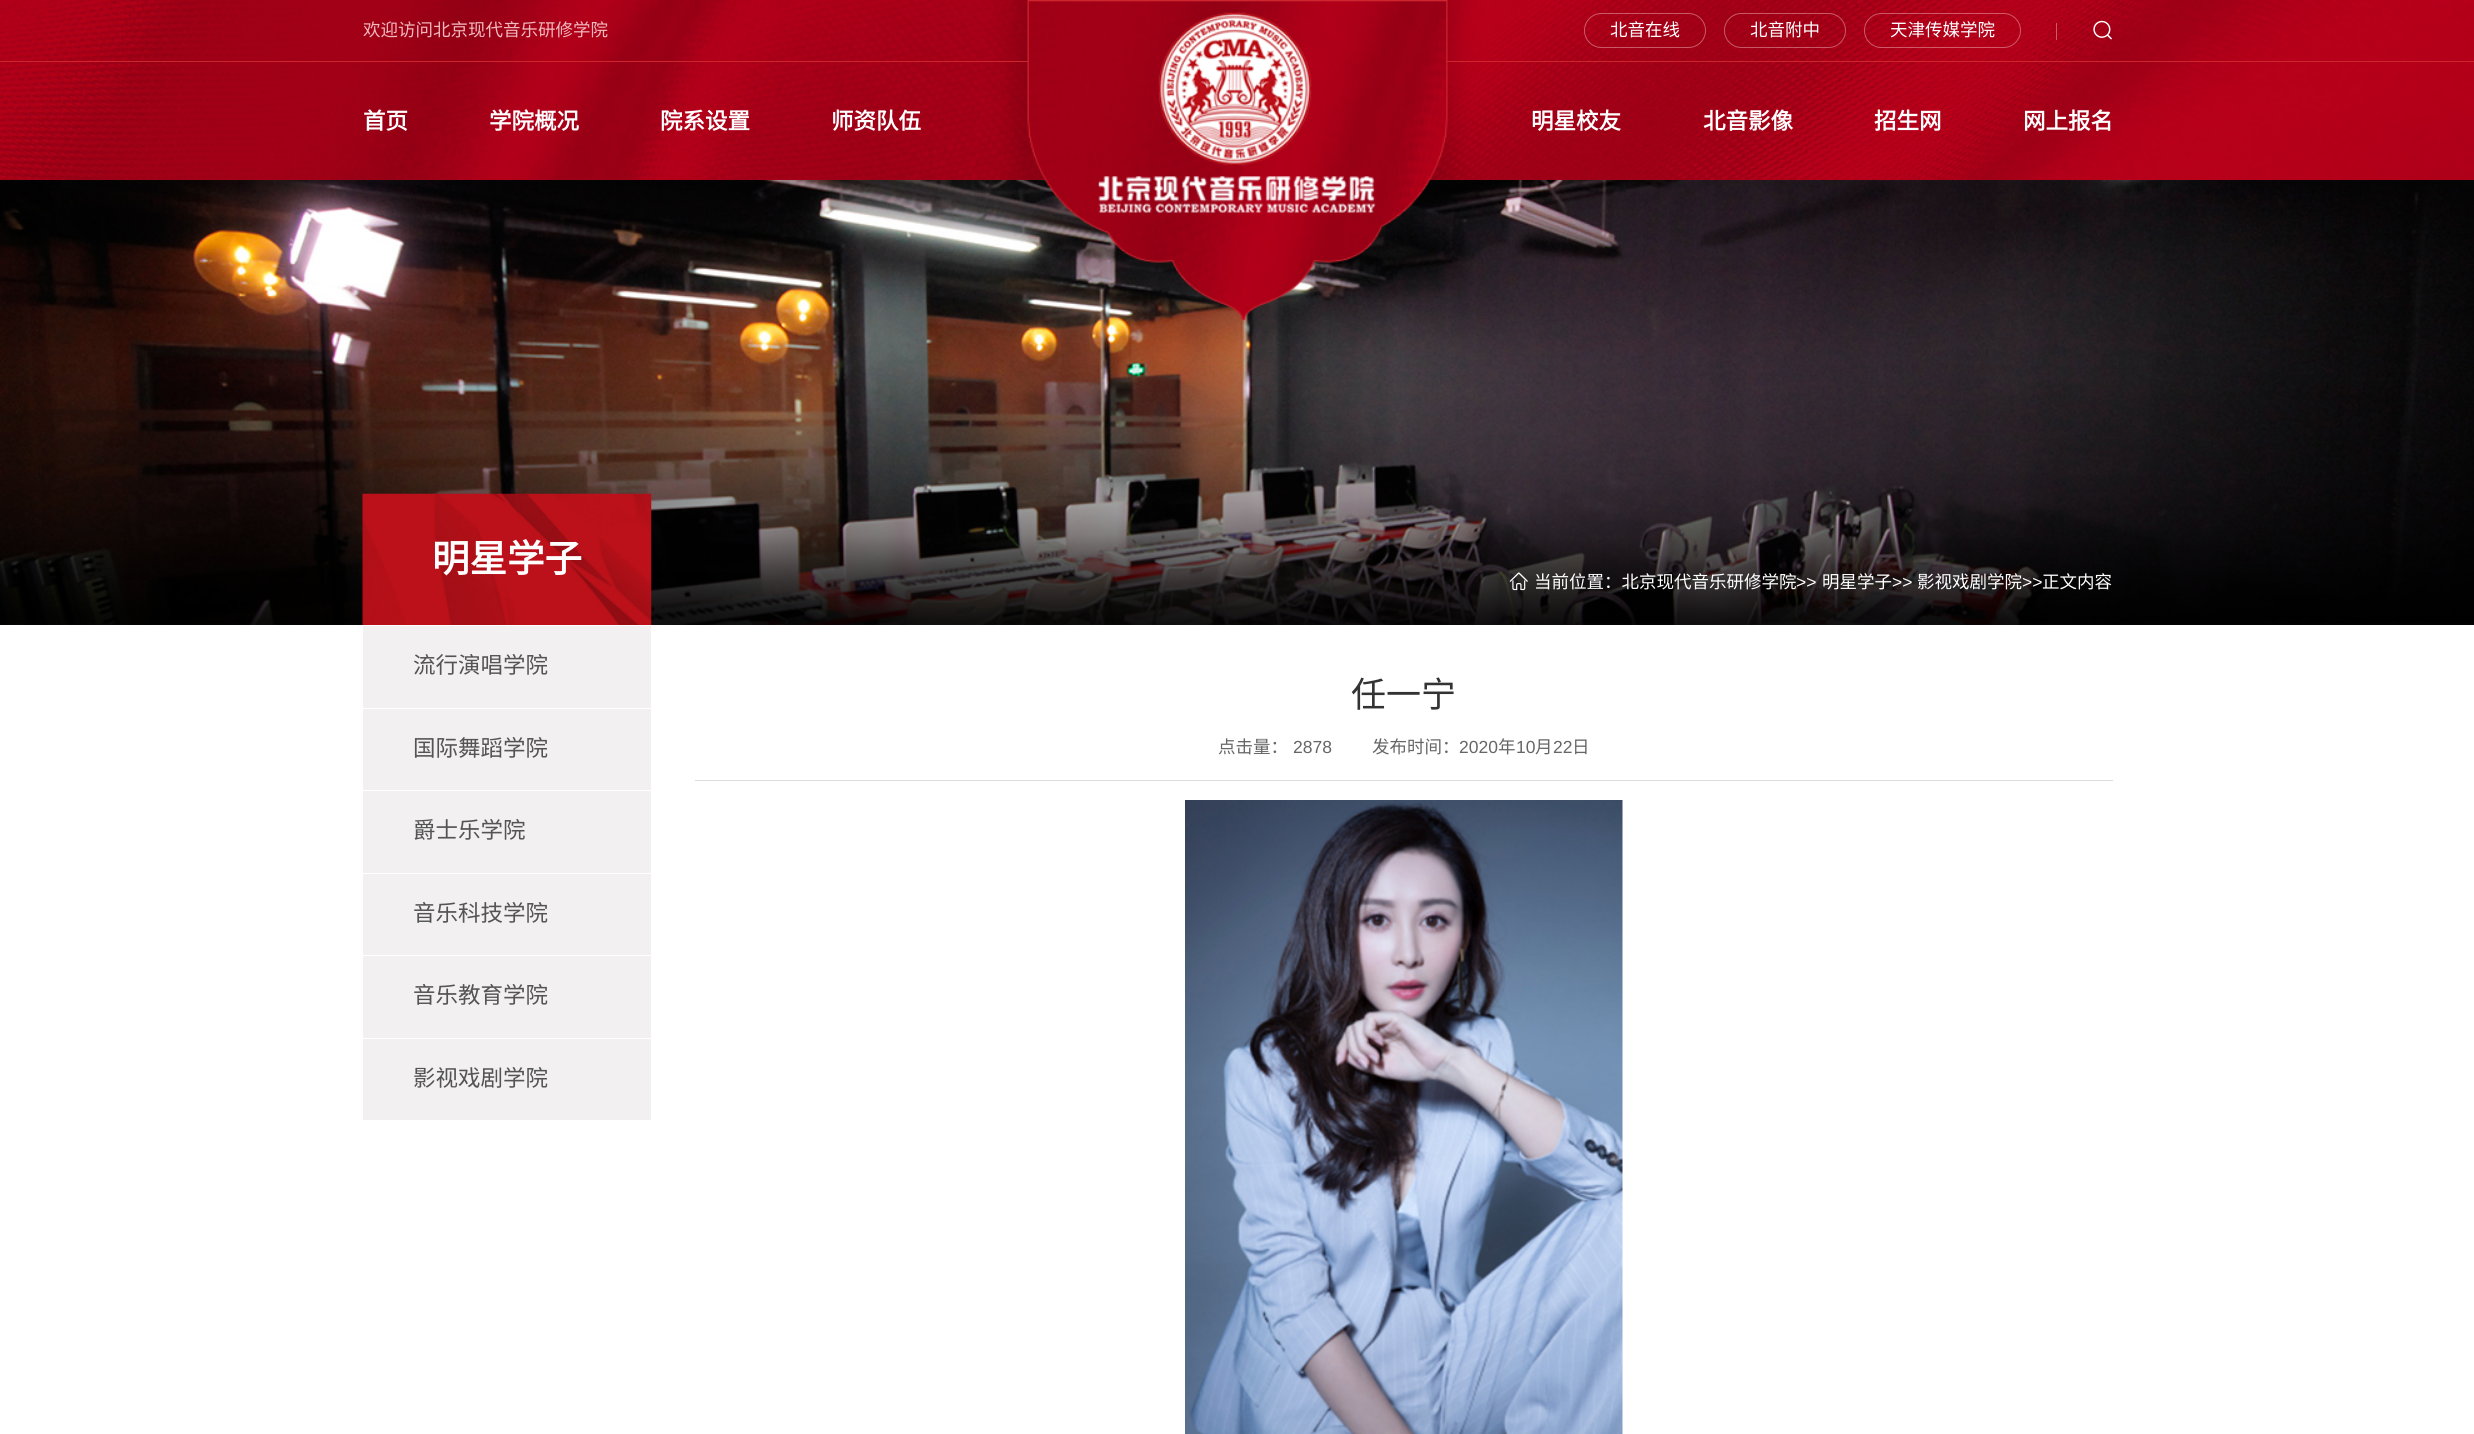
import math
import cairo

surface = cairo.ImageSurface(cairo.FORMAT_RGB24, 2474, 1434)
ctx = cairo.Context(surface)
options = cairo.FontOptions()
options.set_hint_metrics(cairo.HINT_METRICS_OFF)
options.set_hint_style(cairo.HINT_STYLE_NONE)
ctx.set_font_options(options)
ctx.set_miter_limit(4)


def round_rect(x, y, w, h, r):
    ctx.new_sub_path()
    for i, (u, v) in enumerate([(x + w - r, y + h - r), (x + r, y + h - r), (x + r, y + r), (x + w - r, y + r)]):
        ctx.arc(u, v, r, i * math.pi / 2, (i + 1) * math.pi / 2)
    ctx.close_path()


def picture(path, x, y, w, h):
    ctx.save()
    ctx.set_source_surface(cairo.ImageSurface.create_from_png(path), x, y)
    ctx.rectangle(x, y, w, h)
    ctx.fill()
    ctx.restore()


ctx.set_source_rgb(1, 1, 1)
ctx.paint()
picture("img1.png", 0, 0, 2474, 180)
ctx.set_source_rgb(0.808, 0.149, 0.184)
ctx.rectangle(0, 61, 2474, 1)
ctx.fill()
picture("img7.png", 0, 180, 2474, 445)
picture("img2.png", 1027, 0, 421, 321)
picture("img3.png", 1098, 12, 278, 201)
ctx.select_font_face("Noto Sans CJK SC")
ctx.set_font_size(17.5)
ctx.set_source_rgb(0.949, 0.729, 0.745)
ctx.move_to(363, 36)
ctx.show_text("欢迎访问北京现代音乐研修学院")
round_rect(1584.5, 13.5, 121, 34, 17)
ctx.set_source_rgba(0.949, 0.729, 0.745, 0.48)
ctx.set_line_width(1)
ctx.stroke()
ctx.set_source_rgb(1, 1, 1)
ctx.move_to(1610, 36)
ctx.show_text("北音在线")
round_rect(1724.5, 13.5, 121, 34, 17)
ctx.set_source_rgba(0.949, 0.729, 0.745, 0.48)
ctx.stroke()
ctx.set_source_rgb(1, 1, 1)
ctx.move_to(1750, 36)
ctx.show_text("北音附中")
round_rect(1864.5, 13.5, 156, 34, 17)
ctx.set_source_rgba(0.949, 0.729, 0.745, 0.48)
ctx.stroke()
ctx.set_source_rgb(1, 1, 1)
ctx.move_to(1890, 36)
ctx.show_text("天津传媒学院")
ctx.set_source_rgba(0.949, 0.729, 0.745, 0.48)
ctx.rectangle(2056, 23, 1, 17)
ctx.fill()
picture("img4.png", 2093, 20, 19, 20)
ctx.select_font_face("Noto Sans CJK SC", cairo.FONT_SLANT_NORMAL, cairo.FONT_WEIGHT_BOLD)
ctx.set_font_size(22.5)
ctx.set_source_rgb(1, 1, 1)
ctx.move_to(363, 129)
ctx.show_text("首页")
ctx.move_to(489, 129)
ctx.show_text("学院概况")
ctx.move_to(660, 129)
ctx.show_text("院系设置")
ctx.move_to(831, 129)
ctx.show_text("师资队伍")
ctx.move_to(1531, 129)
ctx.show_text("明星校友")
ctx.move_to(1703, 129)
ctx.show_text("北音影像")
ctx.move_to(1874, 129)
ctx.show_text("招生网")
ctx.move_to(2023, 129)
ctx.show_text("网上报名")
picture("img5.png", 362, 493, 290, 132)
ctx.set_font_size(37.5)
ctx.move_to(432, 572)
ctx.show_text("明星学子")
ctx.set_source_rgb(0.949, 0.941, 0.941)
ctx.rectangle(363, 626, 288, 82)
ctx.fill()
ctx.select_font_face("Noto Sans CJK SC")
ctx.set_font_size(22.5)
ctx.set_source_rgb(0.329, 0.329, 0.329)
ctx.move_to(413, 673)
ctx.show_text("流行演唱学院")
ctx.set_source_rgb(0.949, 0.941, 0.941)
ctx.rectangle(363, 709, 288, 81)
ctx.fill()
ctx.set_source_rgb(0.329, 0.329, 0.329)
ctx.move_to(413, 756)
ctx.show_text("国际舞蹈学院")
ctx.set_source_rgb(0.949, 0.941, 0.941)
ctx.rectangle(363, 791, 288, 82)
ctx.fill()
ctx.set_source_rgb(0.329, 0.329, 0.329)
ctx.move_to(413, 838)
ctx.show_text("爵士乐学院")
ctx.set_source_rgb(0.949, 0.941, 0.941)
ctx.rectangle(363, 874, 288, 81)
ctx.fill()
ctx.set_source_rgb(0.329, 0.329, 0.329)
ctx.move_to(413, 921)
ctx.show_text("音乐科技学院")
ctx.set_source_rgb(0.949, 0.941, 0.941)
ctx.rectangle(363, 956, 288, 82)
ctx.fill()
ctx.set_source_rgb(0.329, 0.329, 0.329)
ctx.move_to(413, 1003)
ctx.show_text("音乐教育学院")
ctx.set_source_rgb(0.949, 0.941, 0.941)
ctx.rectangle(363, 1039, 288, 81)
ctx.fill()
ctx.set_source_rgb(0.329, 0.329, 0.329)
ctx.move_to(413, 1086)
ctx.show_text("影视戏剧学院")
ctx.set_source_rgb(0.863, 0.863, 0.863)
ctx.rectangle(695, 780, 1418, 1)
ctx.fill()
ctx.set_font_size(35)
ctx.set_source_rgb(0.2, 0.2, 0.2)
ctx.move_to(1351, 707)
ctx.show_text("任一宁")
ctx.set_font_size(17.5)
ctx.set_source_rgb(0.4, 0.4, 0.4)
ctx.move_to(1218, 753)
ctx.show_text("点击量：")
ctx.select_font_face("Liberation Sans")
ctx.move_to(1293, 753)
ctx.show_text("2878")
ctx.select_font_face("Noto Sans CJK SC")
ctx.move_to(1372, 753)
ctx.show_text("发布时间：")
ctx.select_font_face("Liberation Sans")
ctx.move_to(1459, 753)
ctx.show_text("2020")
ctx.select_font_face("Noto Sans CJK SC")
ctx.move_to(1498, 753)
ctx.show_text("年")
ctx.select_font_face("Liberation Sans")
ctx.move_to(1516, 753)
ctx.show_text("10")
ctx.select_font_face("Noto Sans CJK SC")
ctx.move_to(1535, 753)
ctx.show_text("月")
ctx.select_font_face("Liberation Sans")
ctx.move_to(1553, 753)
ctx.show_text("22")
ctx.select_font_face("Noto Sans CJK SC")
ctx.move_to(1572, 753)
ctx.show_text("日")
picture("img6.png", 1185, 800, 438, 634)
picture("img8.png", 1509, 572, 19, 19)
ctx.set_source_rgb(1, 1, 1)
ctx.move_to(1534, 588)
ctx.show_text("当前位置：北京现代音乐研修学院")
ctx.select_font_face("Liberation Sans")
ctx.move_to(1796, 588)
ctx.show_text(">>")
ctx.select_font_face("Noto Sans CJK SC")
ctx.move_to(1822, 588)
ctx.show_text("明星学子")
ctx.select_font_face("Liberation Sans")
ctx.move_to(1892, 588)
ctx.show_text(">>")
ctx.select_font_face("Noto Sans CJK SC")
ctx.move_to(1917, 588)
ctx.show_text("影视戏剧学院")
ctx.select_font_face("Liberation Sans")
ctx.move_to(2022, 588)
ctx.show_text(">>")
ctx.select_font_face("Noto Sans CJK SC")
ctx.move_to(2042, 588)
ctx.show_text("正文内容")
surface.write_to_png("page.png")
